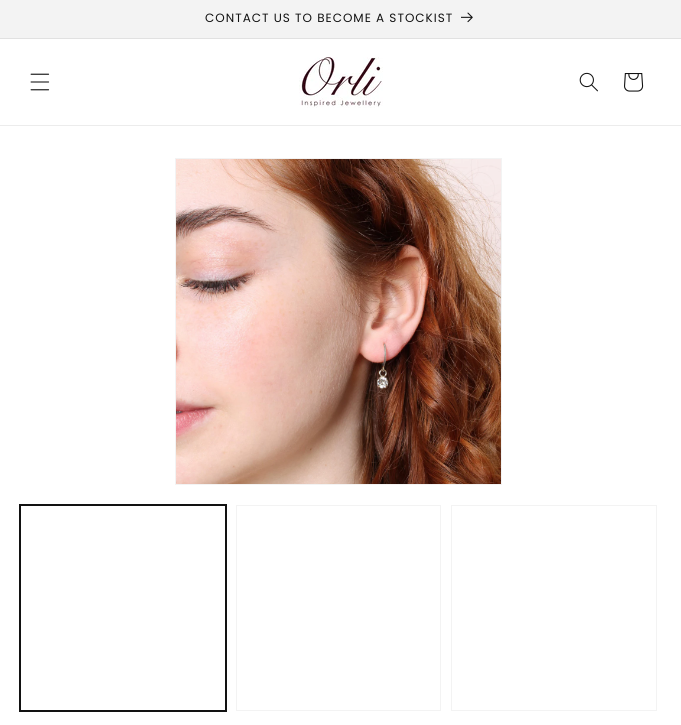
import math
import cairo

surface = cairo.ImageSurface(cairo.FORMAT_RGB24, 681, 725)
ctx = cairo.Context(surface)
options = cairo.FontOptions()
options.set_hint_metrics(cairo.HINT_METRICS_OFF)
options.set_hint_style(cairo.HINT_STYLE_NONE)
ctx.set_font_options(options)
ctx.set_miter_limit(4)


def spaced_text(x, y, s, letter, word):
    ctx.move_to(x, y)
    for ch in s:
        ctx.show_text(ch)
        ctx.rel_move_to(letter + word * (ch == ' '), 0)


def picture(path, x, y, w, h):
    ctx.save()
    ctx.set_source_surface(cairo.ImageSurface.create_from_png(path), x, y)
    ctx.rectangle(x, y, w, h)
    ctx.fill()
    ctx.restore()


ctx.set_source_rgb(1, 1, 1)
ctx.paint()
ctx.set_source_rgb(0.953, 0.953, 0.953)
ctx.rectangle(0, 0, 681, 38)
ctx.fill()
ctx.set_source_rgb(0.882, 0.882, 0.882)
ctx.rectangle(0, 38, 681, 1)
ctx.fill()
ctx.select_font_face("Poppins")
ctx.set_font_size(12)
ctx.set_source_rgb(0.071, 0.071, 0.071)
spaced_text(205, 22, "CONTACT US TO BECOME A STOCKIST", 1, 0)
picture("img1.png", 461, 12, 12, 11)
ctx.set_source_rgb(0.925, 0.925, 0.925)
ctx.rectangle(0, 125, 681, 1)
ctx.fill()
picture("img2.png", 30, 73, 20, 18)
picture("img3.png", 299, 57, 84, 51)
picture("img4.png", 579, 72, 19, 20)
picture("img5.png", 624, 73, 20, 19)
ctx.rectangle(175.5, 158.5, 326, 326)
ctx.set_source_rgb(0.953, 0.953, 0.953)
ctx.set_line_width(1)
ctx.stroke()
picture("img6.png", 176, 159, 325, 325)
ctx.rectangle(19.5, 504.5, 207, 207)
ctx.set_source_rgb(0.071, 0.071, 0.071)
ctx.stroke()
ctx.rectangle(20.5, 505.5, 205, 205)
ctx.stroke()
ctx.rectangle(236.5, 505.5, 204, 205)
ctx.set_source_rgb(0.953, 0.953, 0.953)
ctx.stroke()
ctx.rectangle(451.5, 505.5, 205, 205)
ctx.stroke()
surface.write_to_png("page.png")
